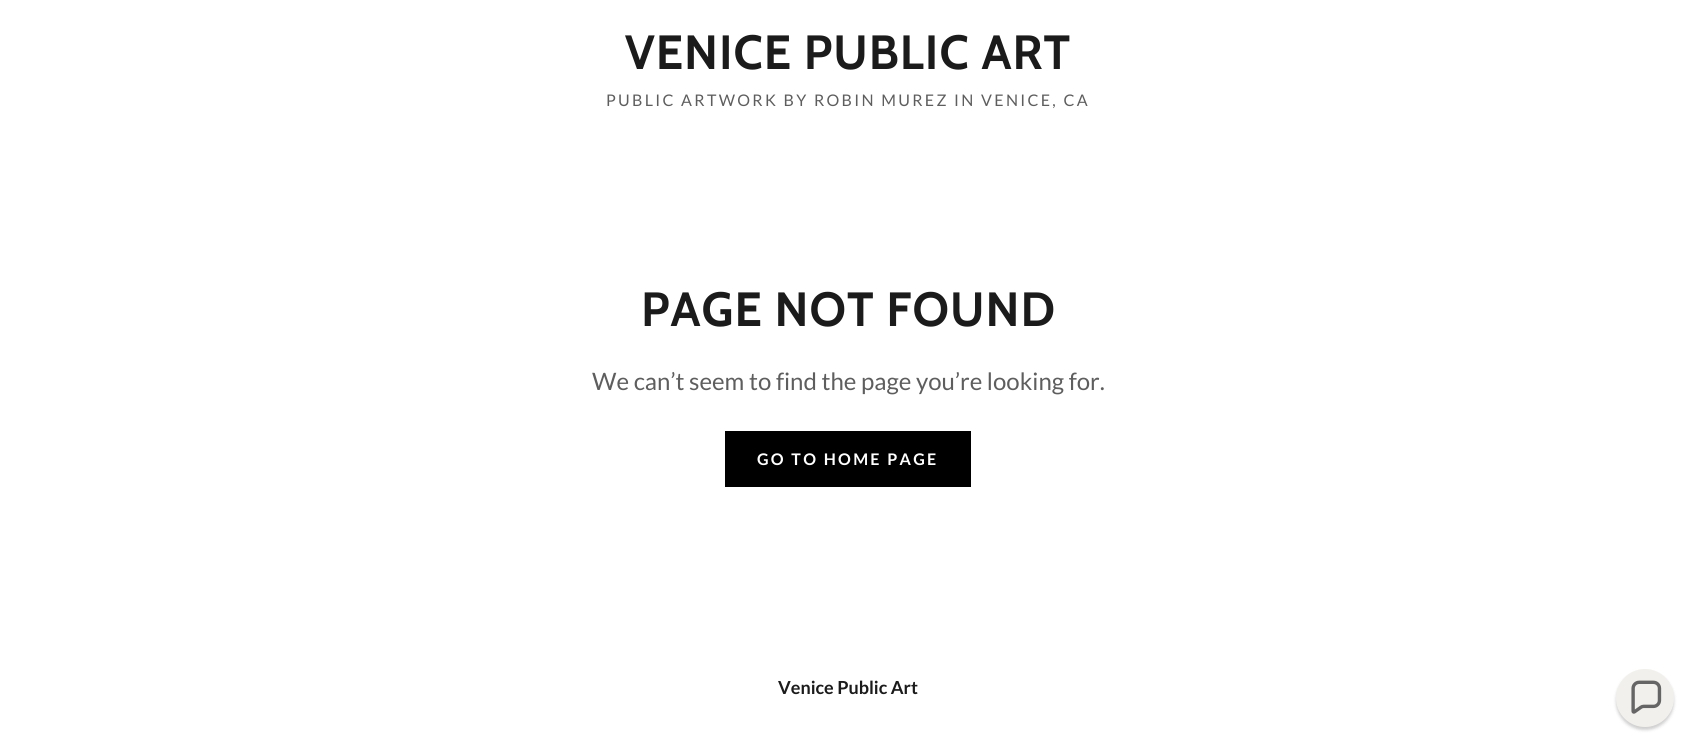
import math
import cairo

surface = cairo.ImageSurface(cairo.FORMAT_RGB24, 1696, 749)
ctx = cairo.Context(surface)
options = cairo.FontOptions()
options.set_hint_metrics(cairo.HINT_METRICS_OFF)
options.set_hint_style(cairo.HINT_STYLE_NONE)
ctx.set_font_options(options)
ctx.set_miter_limit(4)


def spaced_text(x, y, s, letter, word):
    ctx.move_to(x, y)
    for ch in s:
        ctx.show_text(ch)
        ctx.rel_move_to(letter + word * (ch == ' '), 0)


def round_rect(x, y, w, h, r):
    ctx.new_sub_path()
    for i, (u, v) in enumerate([(x + w - r, y + h - r), (x + r, y + h - r), (x + r, y + r), (x + w - r, y + r)]):
        ctx.arc(u, v, r, i * math.pi / 2, (i + 1) * math.pi / 2)
    ctx.close_path()


def shadow(x, y, w, h, r, blur, alpha):
    ctx.push_group_with_content(cairo.CONTENT_ALPHA)
    ctx.set_operator(cairo.OPERATOR_SOURCE)
    for i in range(15, -16, -2):
        e = blur * i / 6
        if min(w, h) + 2 * e > 0:
            ctx.set_source_rgba(0, 0, 0, alpha * math.erfc((i - 1) / 8.5) / 2)
            round_rect(x - e, y - e, w + 2 * e, h + 2 * e, max(0, min(r + e + blur * .6, min(w, h) / 2 + e)))
            ctx.fill()
    ctx.mask(ctx.pop_group())


def picture(path, x, y, w, h):
    ctx.save()
    ctx.set_source_surface(cairo.ImageSurface.create_from_png(path), x, y)
    ctx.rectangle(x, y, w, h)
    ctx.fill()
    ctx.restore()


ctx.set_source_rgb(1, 1, 1)
ctx.paint()
ctx.select_font_face("Cabin", cairo.FONT_SLANT_NORMAL, cairo.FONT_WEIGHT_BOLD)
ctx.set_font_size(48)
ctx.set_source_rgb(0.106, 0.106, 0.106)
spaced_text(625, 69, "VENICE PUBLIC ART", 1, 0)
ctx.select_font_face("Lato")
ctx.set_font_size(16)
ctx.set_source_rgb(0.369, 0.369, 0.369)
spaced_text(606, 106, "PUBLIC ARTWORK BY ROBIN MUREZ IN VENICE, CA", 2.3, 0)
ctx.select_font_face("Cabin", cairo.FONT_SLANT_NORMAL, cairo.FONT_WEIGHT_BOLD)
ctx.set_font_size(48)
ctx.set_source_rgb(0.106, 0.106, 0.106)
spaced_text(641, 326, "PAGE NOT FOUND", 1, 0)
ctx.select_font_face("Lato")
ctx.set_font_size(24)
ctx.set_source_rgb(0.369, 0.369, 0.369)
ctx.move_to(592, 390)
ctx.show_text("We can’t seem to find the page you’re looking for.")
ctx.set_source_rgb(0, 0, 0)
ctx.rectangle(725, 431, 246, 56)
ctx.fill()
ctx.select_font_face("Lato", cairo.FONT_SLANT_NORMAL, cairo.FONT_WEIGHT_BOLD)
ctx.set_font_size(16)
ctx.set_source_rgb(1, 1, 1)
spaced_text(757, 465, "GO TO HOME PAGE", 2.3, 0)
ctx.set_font_size(18)
ctx.set_source_rgb(0.106, 0.106, 0.106)
ctx.move_to(778, 694)
ctx.show_text("Venice Public Art")
ctx.set_source_rgb(0.051, 0.051, 0.051)
shadow(1616, 672, 58, 58, 29, 1.5, 0.2)
ctx.set_source_rgb(0.949, 0.941, 0.922)
ctx.arc(1645, 698, 29, 0, 2 * math.pi)
ctx.fill()
picture("img1.png", 1631, 680, 31, 34)
surface.write_to_png("page.png")
